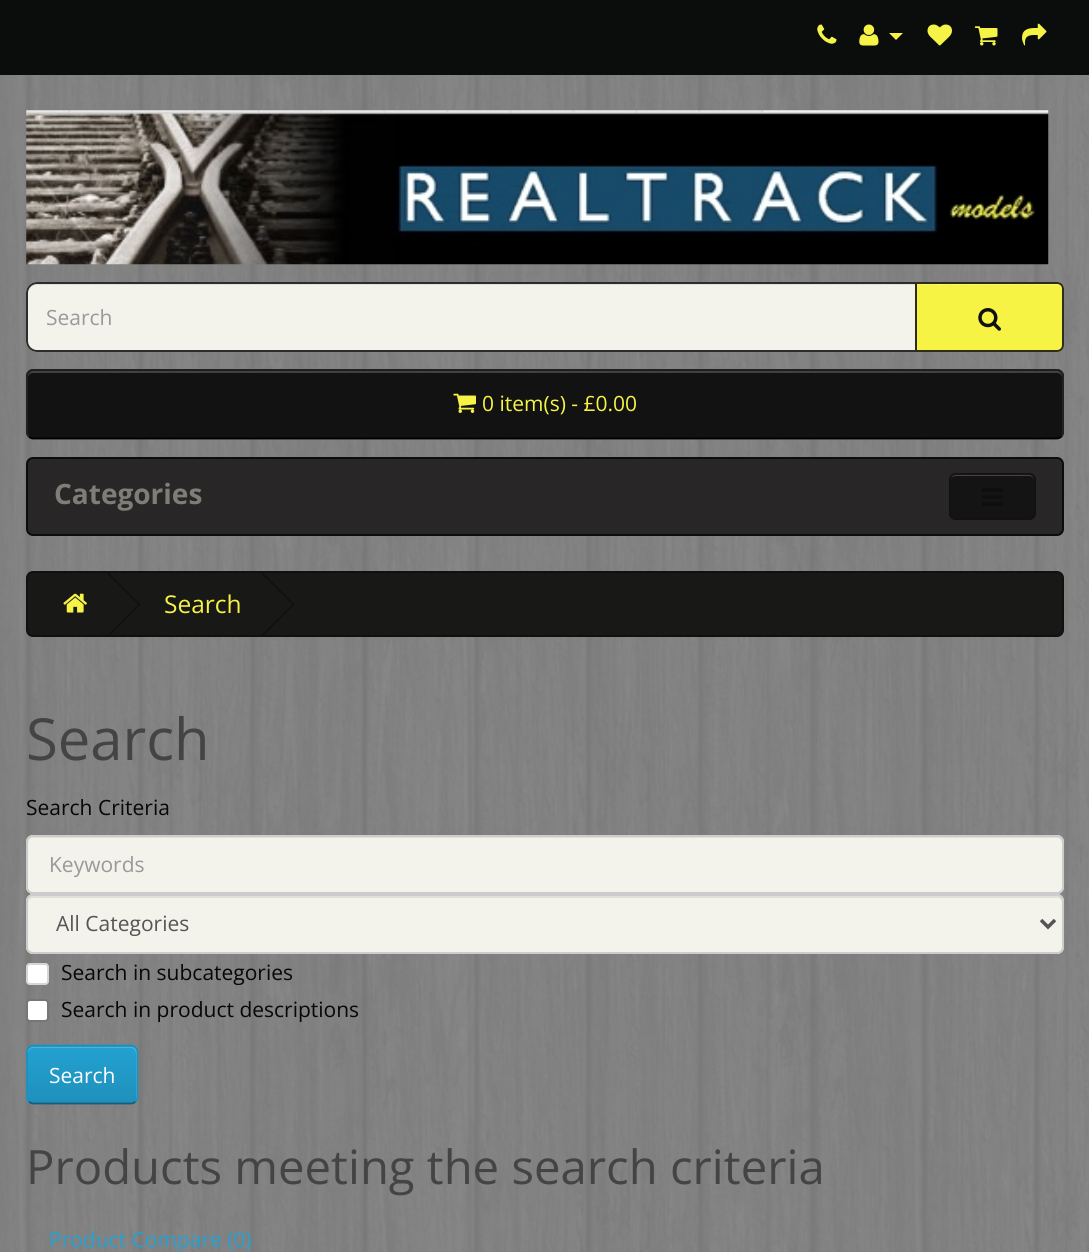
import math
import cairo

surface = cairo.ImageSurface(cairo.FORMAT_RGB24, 1089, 1252)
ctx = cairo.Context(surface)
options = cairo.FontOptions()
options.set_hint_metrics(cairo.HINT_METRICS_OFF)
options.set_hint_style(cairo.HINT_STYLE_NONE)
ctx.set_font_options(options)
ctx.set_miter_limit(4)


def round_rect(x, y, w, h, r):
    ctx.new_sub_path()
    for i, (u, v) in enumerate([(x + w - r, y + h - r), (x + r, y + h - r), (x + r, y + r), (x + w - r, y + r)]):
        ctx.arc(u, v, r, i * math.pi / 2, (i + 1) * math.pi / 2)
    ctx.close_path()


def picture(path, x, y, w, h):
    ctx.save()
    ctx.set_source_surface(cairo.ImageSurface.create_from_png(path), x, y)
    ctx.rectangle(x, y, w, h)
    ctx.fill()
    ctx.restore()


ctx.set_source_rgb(0.937, 0.937, 0.933)
ctx.paint()
picture("img1.png", 0, 75, 1089, 1177)
ctx.set_source_rgb(0.043, 0.047, 0.047)
ctx.rectangle(0, 0, 1089, 75)
ctx.fill()
picture("img2.png", 817, 24, 20, 20)
picture("img3.png", 859, 24, 20, 22)
ctx.set_source_rgb(0.961, 0.953, 0.271)
ctx.new_path()
ctx.move_to(889, 33)
ctx.line_to(903, 33)
ctx.line_to(896, 40)
ctx.close_path()
ctx.fill()
picture("img4.png", 927, 24, 25, 22)
picture("img5.png", 974, 26, 24, 20)
picture("img6.png", 1022, 23, 25, 23)
picture("img7.png", 26, 110, 1023, 155)
ctx.set_source_rgb(0.953, 0.953, 0.922)
ctx.new_path()
ctx.move_to(37, 282)
ctx.line_to(917, 282)
ctx.line_to(917, 352)
ctx.line_to(37, 352)
ctx.curve_to(31, 352, 26, 347, 26, 341)
ctx.line_to(26, 293)
ctx.curve_to(26, 287, 31, 282, 37, 282)
ctx.close_path()
ctx.fill()
ctx.set_source_rgb(0.882, 0.882, 0.851)
ctx.new_path()
ctx.move_to(37, 285)
ctx.line_to(915, 285)
ctx.line_to(915, 284)
ctx.line_to(37, 284)
ctx.curve_to(31, 284, 28, 289, 28, 294)
ctx.curve_to(28, 289, 32, 285, 37, 285)
ctx.close_path()
ctx.fill()
ctx.new_path()
ctx.move_to(37, 283)
ctx.line_to(916, 283)
ctx.line_to(916, 351)
ctx.line_to(37, 351)
ctx.curve_to(31.5, 351, 27, 346.5, 27, 341)
ctx.line_to(27, 293)
ctx.curve_to(27, 287.5, 31.5, 283, 37, 283)
ctx.close_path()
ctx.set_source_rgba(0.059, 0.059, 0.063, 0.87)
ctx.stroke()
ctx.select_font_face("Open Sans")
ctx.set_font_size(21)
ctx.set_source_rgb(0.6, 0.6, 0.6)
ctx.move_to(46, 325)
ctx.show_text("Search")
ctx.set_source_rgb(0.961, 0.953, 0.271)
ctx.new_path()
ctx.move_to(915, 282)
ctx.line_to(1057, 282)
ctx.curve_to(1061, 282, 1064, 285, 1064, 289)
ctx.line_to(1064, 345)
ctx.curve_to(1064, 349, 1061, 352, 1057, 352)
ctx.line_to(915, 352)
ctx.close_path()
ctx.fill()
ctx.set_source_rgb(0.969, 0.961, 0.416)
ctx.new_path()
ctx.move_to(917, 285)
ctx.line_to(1057, 285)
ctx.curve_to(1060, 285, 1062, 288, 1062, 290)
ctx.line_to(1062, 289)
ctx.curve_to(1062, 286, 1060, 284, 1057, 284)
ctx.line_to(917, 284)
ctx.close_path()
ctx.fill()
ctx.new_path()
ctx.move_to(916, 283)
ctx.line_to(1057, 283)
ctx.curve_to(1060.5, 283, 1063, 285.5, 1063, 289)
ctx.line_to(1063, 345)
ctx.curve_to(1063, 348.5, 1060.5, 351, 1057, 351)
ctx.line_to(916, 351)
ctx.close_path()
ctx.set_source_rgba(0.059, 0.059, 0.063, 0.87)
ctx.stroke()
picture("img8.png", 978, 308, 23, 23)
ctx.set_source_rgb(0.071, 0.071, 0.071)
round_rect(26, 369, 1038, 70, 7)
ctx.fill()
ctx.set_source_rgb(0.255, 0.255, 0.255)
ctx.new_path()
ctx.move_to(33, 373)
ctx.line_to(1057, 373)
ctx.curve_to(1060, 373, 1062, 375, 1062, 378)
ctx.line_to(1062, 376)
ctx.curve_to(1062, 373, 1060, 371, 1057, 371)
ctx.line_to(33, 371)
ctx.curve_to(30, 371, 28, 373, 28, 376)
ctx.line_to(28, 378)
ctx.curve_to(28, 375, 30, 373, 33, 373)
ctx.close_path()
ctx.fill()
ctx.new_path()
ctx.move_to(1061.5, 436.5)
ctx.curve_to(1060, 437.5, 1058.5, 438.5, 1057, 438.5)
ctx.line_to(33, 438.5)
ctx.curve_to(31.5, 438.5, 30, 437.5, 29, 436.5)
ctx.set_source_rgb(0, 0, 0)
ctx.set_line_width(1.8)
ctx.stroke()
ctx.new_path()
ctx.move_to(29, 436.5)
ctx.curve_to(28, 435.5, 27, 434, 27, 432)
ctx.line_to(27, 376)
ctx.curve_to(27, 374.5, 28, 373, 29, 372)
ctx.curve_to(30, 371, 31.5, 370, 33, 370)
ctx.line_to(1057, 370)
ctx.curve_to(1058.5, 370, 1060, 371, 1061.5, 372)
ctx.curve_to(1062.5, 373, 1063, 374.5, 1063, 376)
ctx.line_to(1063, 432)
ctx.curve_to(1063, 434, 1062.5, 435.5, 1061.5, 436.5)
ctx.set_source_rgb(0.133, 0.133, 0.133)
ctx.stroke()
picture("img9.png", 453, 393, 23, 20)
ctx.set_source_rgb(0.961, 0.953, 0.271)
ctx.move_to(482, 411)
ctx.show_text("0 item(s) - £0.00")
ctx.set_source_rgb(0.157, 0.149, 0.149)
round_rect(27, 458, 1036, 77, 6)
ctx.fill_preserve()
ctx.set_source_rgb(0.047, 0.047, 0.047)
ctx.set_line_width(2)
ctx.stroke()
ctx.select_font_face("Open Sans", cairo.FONT_SLANT_NORMAL, cairo.FONT_WEIGHT_BOLD)
ctx.set_font_size(28)
ctx.set_source_rgb(0.494, 0.494, 0.475)
ctx.move_to(54, 504)
ctx.show_text("Categories")
ctx.set_source_rgb(0.082, 0.082, 0.082)
round_rect(949, 473, 87, 47, 7)
ctx.fill()
ctx.set_source_rgb(0.267, 0.267, 0.267)
ctx.new_path()
ctx.move_to(956, 476)
ctx.line_to(1029, 476)
ctx.curve_to(1032, 476, 1034, 478, 1034, 481)
ctx.curve_to(1034, 471, 1025, 474, 1017, 474)
ctx.line_to(967, 474)
ctx.curve_to(959, 474, 950, 471, 950, 481)
ctx.curve_to(950, 478, 953, 476, 956, 476)
ctx.close_path()
ctx.fill()
round_rect(950, 474, 85, 45, 6)
ctx.set_source_rgba(0.071, 0.071, 0.071, 0.87)
ctx.stroke()
picture("img10.png", 982, 488, 21, 18)
ctx.set_source_rgb(0.094, 0.094, 0.09)
round_rect(27, 572, 1036, 64, 6)
ctx.fill_preserve()
ctx.set_source_rgb(0.063, 0.063, 0.059)
ctx.stroke()
picture("img11.png", 63, 593, 24, 20)
ctx.new_path()
ctx.move_to(107, 573.5)
ctx.line_to(108.5, 572.5)
ctx.line_to(140.5, 604.5)
ctx.line_to(139.5, 605.5)
ctx.close_path()
ctx.fill()
ctx.new_path()
ctx.move_to(107, 635.5)
ctx.line_to(139.5, 603.5)
ctx.line_to(140.5, 604.5)
ctx.line_to(108.5, 636.5)
ctx.close_path()
ctx.fill()
ctx.select_font_face("Open Sans")
ctx.set_font_size(24.5)
ctx.set_source_rgb(0.961, 0.953, 0.271)
ctx.move_to(164, 613)
ctx.show_text("Search")
ctx.set_source_rgb(0.063, 0.063, 0.059)
ctx.new_path()
ctx.move_to(261, 573.5)
ctx.line_to(262.5, 572.5)
ctx.line_to(294.5, 604.5)
ctx.line_to(293.5, 605.5)
ctx.close_path()
ctx.fill()
ctx.new_path()
ctx.move_to(261, 635.5)
ctx.line_to(293.5, 603.5)
ctx.line_to(294.5, 604.5)
ctx.line_to(262.5, 636.5)
ctx.close_path()
ctx.fill()
ctx.set_font_size(58)
ctx.set_source_rgb(0.267, 0.267, 0.267)
ctx.move_to(26, 760)
ctx.show_text("Search")
ctx.set_font_size(21)
ctx.set_source_rgb(0.031, 0.031, 0.031)
ctx.move_to(26, 815)
ctx.show_text("Search Criteria")
ctx.set_source_rgb(0.953, 0.953, 0.922)
round_rect(26, 835, 1038, 59, 7)
ctx.fill()
ctx.set_source_rgb(0.882, 0.882, 0.851)
ctx.new_path()
ctx.move_to(33, 838)
ctx.line_to(1057, 838)
ctx.curve_to(1060, 838, 1062, 841, 1062, 844)
ctx.line_to(1062, 842)
ctx.curve_to(1062, 839, 1060, 837, 1057, 837)
ctx.line_to(33, 837)
ctx.curve_to(30, 837, 28, 839, 28, 842)
ctx.line_to(28, 844)
ctx.curve_to(28, 841, 30, 838, 33, 838)
ctx.close_path()
ctx.fill()
round_rect(27, 836, 1036, 57, 6)
ctx.set_source_rgb(0.8, 0.8, 0.8)
ctx.stroke()
ctx.set_source_rgb(0.6, 0.6, 0.6)
ctx.move_to(49, 872)
ctx.show_text("Keywords")
ctx.set_source_rgb(0.953, 0.953, 0.922)
round_rect(26, 894, 1038, 60, 7)
ctx.fill()
ctx.set_source_rgb(0.882, 0.882, 0.851)
ctx.new_path()
ctx.move_to(33, 898)
ctx.line_to(1057, 898)
ctx.curve_to(1060, 898, 1062, 900, 1062, 903)
ctx.line_to(1062, 901)
ctx.curve_to(1062, 898, 1060, 896, 1057, 896)
ctx.line_to(33, 896)
ctx.curve_to(30, 896, 28, 898, 28, 901)
ctx.line_to(28, 903)
ctx.curve_to(28, 900, 30, 898, 33, 898)
ctx.close_path()
ctx.fill()
round_rect(27, 895, 1036, 58, 6)
ctx.set_source_rgb(0.8, 0.8, 0.8)
ctx.stroke()
ctx.new_path()
ctx.move_to(1041, 920)
ctx.line_to(1048, 927)
ctx.line_to(1055, 920)
ctx.set_source_rgb(0.333, 0.333, 0.333)
ctx.set_line_width(3.5)
ctx.stroke()
ctx.move_to(56, 931)
ctx.show_text("All Categories")
ctx.set_source_rgb(1, 1, 1)
round_rect(26, 963, 23, 22, 4)
ctx.fill()
round_rect(27, 964, 21, 20, 3)
ctx.set_source_rgba(0.463, 0.463, 0.463, 0.3)
ctx.set_line_width(2)
ctx.stroke()
ctx.set_source_rgb(0.031, 0.031, 0.031)
ctx.move_to(61, 980)
ctx.show_text("Search in subcategories")
ctx.set_source_rgb(1, 1, 1)
round_rect(27, 1000, 21, 21, 3)
ctx.fill_preserve()
ctx.set_source_rgb(0.463, 0.463, 0.463)
ctx.stroke()
ctx.set_source_rgb(0.031, 0.031, 0.031)
ctx.move_to(61, 1017)
ctx.show_text("Search in product descriptions")
ctx.set_source_rgb(0.133, 0.604, 0.784)
round_rect(26, 1045, 112, 59, 7)
ctx.fill()
ctx.save()
round_rect(26, 1045, 112, 59, 7)
ctx.clip()
gradient = cairo.LinearGradient(82, 1047, 82, 1103)
gradient.add_color_stop_rgba(0, 0.137, 0.631, 0.82, 1)
gradient.add_color_stop_rgba(1, 0.122, 0.565, 0.733, 1)
ctx.set_source(gradient)
ctx.rectangle(26, 1047, 112, 56)
ctx.fill()
ctx.restore()
ctx.set_source_rgba(1, 1, 1, 0.2)
ctx.new_path()
ctx.move_to(33, 1048)
ctx.line_to(131, 1048)
ctx.curve_to(134, 1048, 136, 1051, 136, 1054)
ctx.line_to(136, 1099)
ctx.line_to(135, 1102)
ctx.curve_to(136, 1101, 137, 1099, 137, 1098)
ctx.line_to(137, 1052)
ctx.curve_to(137, 1049, 135, 1047, 132, 1047)
ctx.line_to(33, 1047)
ctx.curve_to(30, 1047, 28, 1049, 28, 1052)
ctx.line_to(28, 1054)
ctx.curve_to(28, 1051, 30, 1048, 33, 1048)
ctx.close_path()
ctx.fill()
ctx.new_path()
ctx.move_to(135.5, 1101.5)
ctx.curve_to(134.5, 1102.5, 133, 1103.5, 131, 1103.5)
ctx.line_to(33, 1103.5)
ctx.curve_to(31.5, 1103.5, 30, 1102.5, 29, 1101.5)
ctx.set_source_rgb(0.078, 0.369, 0.478)
ctx.set_line_width(1.8)
ctx.stroke()
ctx.new_path()
ctx.move_to(29, 1101.5)
ctx.curve_to(28, 1100.5, 27, 1099, 27, 1097)
ctx.line_to(27, 1052)
ctx.curve_to(27, 1050, 28, 1048.5, 29, 1047.5)
ctx.curve_to(30, 1046.5, 31.5, 1045.5, 33, 1045.5)
ctx.line_to(131, 1045.5)
ctx.curve_to(133, 1045.5, 134.5, 1046.5, 135.5, 1047.5)
ctx.curve_to(136.5, 1048.5, 137.5, 1050, 137.5, 1052)
ctx.line_to(137.5, 1097)
ctx.curve_to(137.5, 1099, 136.5, 1100.5, 135.5, 1101.5)
ctx.set_source_rgb(0.122, 0.565, 0.733)
ctx.stroke()
ctx.set_source_rgb(1, 1, 1)
ctx.move_to(49, 1083)
ctx.show_text("Search")
ctx.set_font_size(47.25)
ctx.set_source_rgb(0.267, 0.267, 0.267)
ctx.move_to(26, 1184)
ctx.show_text("Products meeting the search criteria")
ctx.set_font_size(21)
ctx.set_source_rgb(0.137, 0.631, 0.82)
ctx.move_to(49, 1247)
ctx.show_text("Product Compare (0)")
surface.write_to_png("page.png")
